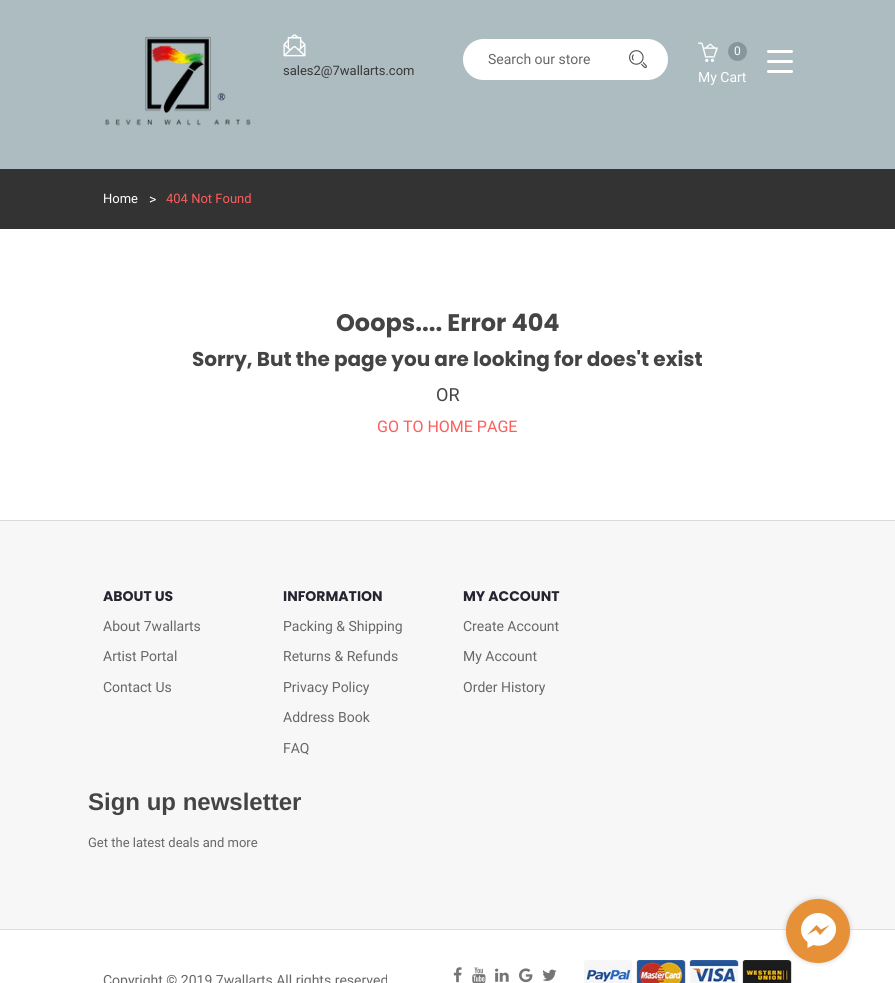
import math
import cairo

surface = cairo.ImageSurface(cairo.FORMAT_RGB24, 895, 983)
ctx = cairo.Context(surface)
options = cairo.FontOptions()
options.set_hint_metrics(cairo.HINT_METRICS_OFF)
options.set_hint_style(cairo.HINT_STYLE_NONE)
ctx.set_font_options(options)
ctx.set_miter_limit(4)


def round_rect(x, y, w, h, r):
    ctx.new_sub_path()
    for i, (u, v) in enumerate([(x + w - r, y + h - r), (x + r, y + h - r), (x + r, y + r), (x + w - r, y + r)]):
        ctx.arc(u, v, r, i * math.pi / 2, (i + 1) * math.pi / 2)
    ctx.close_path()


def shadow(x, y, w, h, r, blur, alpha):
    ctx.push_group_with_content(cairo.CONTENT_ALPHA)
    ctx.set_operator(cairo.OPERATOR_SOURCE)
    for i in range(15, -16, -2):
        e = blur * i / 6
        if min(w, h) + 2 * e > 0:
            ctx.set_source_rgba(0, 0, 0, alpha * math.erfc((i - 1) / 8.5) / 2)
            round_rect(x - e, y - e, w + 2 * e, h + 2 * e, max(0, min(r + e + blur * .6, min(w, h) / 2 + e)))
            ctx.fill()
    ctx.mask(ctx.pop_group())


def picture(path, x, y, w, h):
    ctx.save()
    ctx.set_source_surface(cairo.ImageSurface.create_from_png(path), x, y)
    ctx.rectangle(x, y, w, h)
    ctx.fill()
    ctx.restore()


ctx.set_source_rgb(1, 1, 1)
ctx.paint()
ctx.set_source_rgb(0.678, 0.737, 0.757)
ctx.rectangle(0, 0, 895, 169)
ctx.fill()
picture("img1.png", 105, 36, 146, 90)
picture("img2.png", 283, 34, 23, 23)
ctx.select_font_face("Roboto")
ctx.set_font_size(13)
ctx.set_source_rgb(0.22, 0.22, 0.22)
ctx.move_to(283, 75)
ctx.show_text("sales2@7wallarts.com")
ctx.set_source_rgb(1, 1, 1)
round_rect(463, 39, 205, 41, 20.5)
ctx.fill()
ctx.set_font_size(14)
ctx.set_source_rgb(0.404, 0.404, 0.404)
ctx.move_to(488, 64)
ctx.show_text("Search our store")
picture("img3.png", 629, 50, 18, 19)
picture("img4.png", 698, 42, 20, 20)
ctx.set_source_rgb(0.522, 0.592, 0.616)
ctx.arc(737.5, 51.5, 9.5, 0, 2 * math.pi)
ctx.fill()
ctx.set_font_size(12)
ctx.set_source_rgb(1, 1, 1)
ctx.move_to(734, 55)
ctx.show_text("0")
ctx.set_font_size(14)
ctx.move_to(698, 82)
ctx.show_text("My Cart")
round_rect(767, 50, 26, 3, 1.5)
ctx.fill()
round_rect(767, 60, 26, 3, 1.5)
ctx.fill()
round_rect(767, 70, 26, 3, 1.5)
ctx.fill()
ctx.set_source_rgb(0.2, 0.2, 0.2)
ctx.rectangle(0, 169, 895, 60)
ctx.fill()
ctx.set_font_size(13)
ctx.set_source_rgb(1, 1, 1)
ctx.move_to(103, 203)
ctx.show_text("Home")
ctx.set_font_size(14)
ctx.move_to(149, 204)
ctx.show_text(">")
ctx.set_font_size(13)
ctx.set_source_rgb(0.98, 0.365, 0.361)
ctx.move_to(166, 203)
ctx.show_text("404 Not Found")
ctx.select_font_face("Poppins", cairo.FONT_SLANT_NORMAL, cairo.FONT_WEIGHT_BOLD)
ctx.set_font_size(24)
ctx.set_source_rgb(0.267, 0.267, 0.267)
ctx.move_to(336, 331)
ctx.show_text("Ooops.... Error 404")
ctx.set_font_size(20)
ctx.move_to(192, 366)
ctx.show_text("Sorry, But the page you are looking for does't exist")
ctx.select_font_face("Roboto")
ctx.set_font_size(18)
ctx.move_to(436, 401)
ctx.show_text("OR")
ctx.set_font_size(16)
ctx.set_source_rgb(0.98, 0.365, 0.361)
ctx.move_to(377, 432)
ctx.show_text("GO TO HOME PAGE")
ctx.set_source_rgb(0.965, 0.965, 0.965)
ctx.rectangle(0, 521, 895, 408)
ctx.fill()
ctx.set_source_rgb(0.851, 0.855, 0.875)
ctx.rectangle(0, 520, 895, 1)
ctx.fill()
ctx.select_font_face("Poppins", cairo.FONT_SLANT_NORMAL, cairo.FONT_WEIGHT_BOLD)
ctx.set_font_size(14)
ctx.set_source_rgb(0.145, 0.145, 0.192)
ctx.move_to(103, 601)
ctx.show_text("ABOUT US")
ctx.select_font_face("Roboto")
ctx.set_source_rgb(0.404, 0.404, 0.404)
ctx.move_to(103, 631)
ctx.show_text("About 7wallarts")
ctx.move_to(103, 661)
ctx.show_text("Artist Portal")
ctx.move_to(103, 692)
ctx.show_text("Contact Us")
ctx.select_font_face("Poppins", cairo.FONT_SLANT_NORMAL, cairo.FONT_WEIGHT_BOLD)
ctx.set_source_rgb(0.145, 0.145, 0.192)
ctx.move_to(283, 601)
ctx.show_text("INFORMATION")
ctx.select_font_face("Roboto")
ctx.set_source_rgb(0.404, 0.404, 0.404)
ctx.move_to(283, 631)
ctx.show_text("Packing & Shipping")
ctx.move_to(283, 661)
ctx.show_text("Returns & Refunds")
ctx.move_to(283, 692)
ctx.show_text("Privacy Policy")
ctx.move_to(283, 722)
ctx.show_text("Address Book")
ctx.move_to(283, 753)
ctx.show_text("FAQ")
ctx.select_font_face("Poppins", cairo.FONT_SLANT_NORMAL, cairo.FONT_WEIGHT_BOLD)
ctx.set_source_rgb(0.145, 0.145, 0.192)
ctx.move_to(463, 601)
ctx.show_text("MY ACCOUNT")
ctx.select_font_face("Roboto")
ctx.set_source_rgb(0.404, 0.404, 0.404)
ctx.move_to(463, 631)
ctx.show_text("Create Account")
ctx.move_to(463, 661)
ctx.show_text("My Account")
ctx.move_to(463, 692)
ctx.show_text("Order History")
ctx.select_font_face("Liberation Sans", cairo.FONT_SLANT_NORMAL, cairo.FONT_WEIGHT_BOLD)
ctx.set_font_size(24)
ctx.set_source_rgb(0.267, 0.267, 0.267)
ctx.move_to(88, 810)
ctx.show_text("Sign up newsletter")
ctx.select_font_face("Roboto")
ctx.set_font_size(13)
ctx.set_source_rgb(0.404, 0.404, 0.404)
ctx.move_to(88, 847)
ctx.show_text("Get the latest deals and more")
ctx.set_source_rgb(0.878, 0.878, 0.89)
ctx.rectangle(0, 929, 895, 1)
ctx.fill()
ctx.set_font_size(14)
ctx.set_source_rgb(0.404, 0.404, 0.404)
ctx.move_to(103, 985)
ctx.show_text("Copyright © 2019 7wallarts All rights reserved")
picture("img5.png", 453, 967, 9, 16)
picture("img6.png", 472, 967, 14, 16)
picture("img7.png", 495, 968, 14, 14)
picture("img8.png", 519, 968, 14, 15)
picture("img9.png", 542, 969, 15, 12)
picture("img10.png", 584, 960, 208, 23)
ctx.set_source_rgb(0, 0, 0)
shadow(786, 899, 64, 64, 32, 2.5, 0.2)
ctx.set_source_rgb(0.902, 0.569, 0.22)
ctx.arc(818, 931, 32, 0, 2 * math.pi)
ctx.fill()
ctx.set_source_rgb(1, 1, 1)
ctx.new_path()
ctx.move_to(818.5, 913)
ctx.curve_to(802.5, 913, 794.5, 932.5, 807.5, 942)
ctx.line_to(807.5, 948)
ctx.line_to(813.5, 945)
ctx.curve_to(830.5, 950, 845, 928.5, 829.5, 917)
ctx.curve_to(826.5, 914.5, 822.5, 913, 818.5, 913)
ctx.close_path()
ctx.move_to(820, 935)
ctx.line_to(816, 930)
ctx.line_to(807, 935)
ctx.line_to(816.5, 925)
ctx.line_to(821, 929.5)
ctx.line_to(829.5, 925)
ctx.close_path()
ctx.fill()
surface.write_to_png("page.png")
